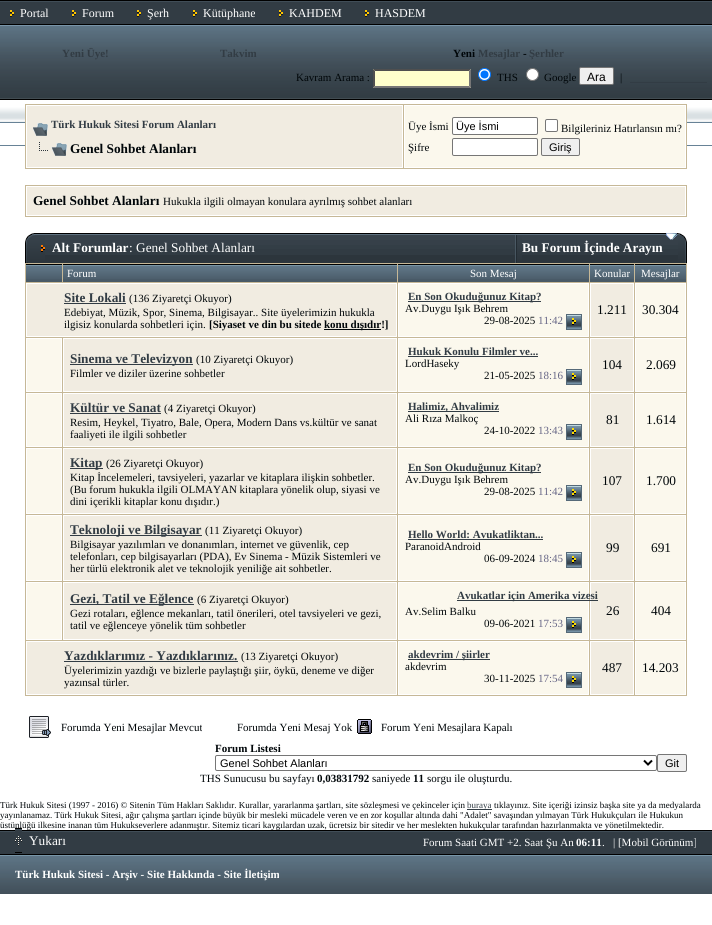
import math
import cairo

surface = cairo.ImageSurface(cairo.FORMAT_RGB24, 712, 925)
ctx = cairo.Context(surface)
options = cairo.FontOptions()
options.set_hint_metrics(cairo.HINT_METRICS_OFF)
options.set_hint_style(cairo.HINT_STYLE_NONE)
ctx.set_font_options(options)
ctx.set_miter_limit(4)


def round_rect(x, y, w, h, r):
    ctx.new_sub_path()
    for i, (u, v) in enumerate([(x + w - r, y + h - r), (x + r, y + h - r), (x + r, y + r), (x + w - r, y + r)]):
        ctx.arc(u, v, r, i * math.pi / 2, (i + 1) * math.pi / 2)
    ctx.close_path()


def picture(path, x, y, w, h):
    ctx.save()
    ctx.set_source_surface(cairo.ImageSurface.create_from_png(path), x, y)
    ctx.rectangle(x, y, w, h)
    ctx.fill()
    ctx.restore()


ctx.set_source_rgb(1, 1, 1)
ctx.paint()
picture("img1.png", 0, 0, 712, 146)
picture("img2.png", 10, 10, 4, 7)
ctx.select_font_face("Liberation Serif")
ctx.set_font_size(12)
ctx.set_source_rgb(1, 1, 1)
ctx.move_to(20, 17)
ctx.show_text("Portal")
picture("img2.png", 72, 10, 4, 7)
ctx.move_to(82, 17)
ctx.show_text("Forum")
picture("img2.png", 137, 10, 4, 7)
ctx.move_to(147, 17)
ctx.show_text("Şerh")
picture("img2.png", 193, 10, 4, 7)
ctx.move_to(203, 17)
ctx.show_text("Kütüphane")
picture("img2.png", 279, 10, 4, 7)
ctx.move_to(289, 17)
ctx.show_text("KAHDEM")
picture("img2.png", 365, 10, 4, 7)
ctx.move_to(375, 17)
ctx.show_text("HASDEM")
ctx.select_font_face("Liberation Serif", cairo.FONT_SLANT_NORMAL, cairo.FONT_WEIGHT_BOLD)
ctx.set_font_size(11)
ctx.set_source_rgb(0.196, 0.235, 0.267)
ctx.move_to(62, 57)
ctx.show_text("Yeni Üye!")
ctx.move_to(220, 57)
ctx.show_text("Takvim")
ctx.set_source_rgb(0, 0.024, 0.039)
ctx.move_to(453, 57)
ctx.show_text("Yeni")
ctx.set_source_rgb(0.196, 0.235, 0.267)
ctx.move_to(478, 57)
ctx.show_text("Mesajlar")
ctx.set_source_rgb(0, 0.024, 0.039)
ctx.move_to(523, 57)
ctx.show_text("-")
ctx.set_source_rgb(0.196, 0.235, 0.267)
ctx.move_to(529, 57)
ctx.show_text("Şerhler")
ctx.select_font_face("Liberation Serif")
ctx.set_source_rgb(0, 0.024, 0.039)
ctx.move_to(296, 81)
ctx.show_text("Kavram Arama :")
ctx.set_source_rgb(1, 1, 0.8)
ctx.rectangle(373, 69, 98, 19)
ctx.fill()
ctx.set_source_rgb(0.31, 0.31, 0.31)
ctx.new_path()
ctx.move_to(373, 69)
ctx.line_to(471, 69)
ctx.line_to(469, 71)
ctx.line_to(375, 71)
ctx.close_path()
ctx.fill()
ctx.set_source_rgb(0.463, 0.463, 0.463)
ctx.new_path()
ctx.move_to(471, 69)
ctx.line_to(471, 88)
ctx.line_to(469, 86)
ctx.line_to(469, 71)
ctx.close_path()
ctx.fill()
ctx.new_path()
ctx.move_to(471, 88)
ctx.line_to(373, 88)
ctx.line_to(375, 86)
ctx.line_to(469, 86)
ctx.close_path()
ctx.fill()
ctx.set_source_rgb(0.31, 0.31, 0.31)
ctx.new_path()
ctx.move_to(373, 88)
ctx.line_to(373, 69)
ctx.line_to(375, 71)
ctx.line_to(375, 86)
ctx.close_path()
ctx.fill()
ctx.set_source_rgb(1, 1, 1)
ctx.arc(484.5, 74.5, 6, 0, 2 * math.pi)
ctx.fill_preserve()
ctx.set_source_rgb(0, 0.459, 1)
ctx.set_line_width(1)
ctx.stroke()
ctx.arc(484.5, 74.5, 4, 0, 2 * math.pi)
ctx.fill()
ctx.set_source_rgb(0, 0.024, 0.039)
ctx.move_to(497, 81)
ctx.show_text("THS")
ctx.set_source_rgb(1, 1, 1)
ctx.new_path()
ctx.arc(532.5, 74.5, 6, 0, 2 * math.pi)
ctx.fill_preserve()
ctx.set_source_rgb(0.463, 0.463, 0.463)
ctx.stroke()
ctx.set_source_rgb(0, 0.024, 0.039)
ctx.move_to(544, 81)
ctx.show_text("Google")
ctx.set_source_rgb(0.937, 0.937, 0.937)
round_rect(579.5, 67.5, 34, 17, 1.5)
ctx.fill_preserve()
ctx.set_source_rgb(0.463, 0.463, 0.463)
ctx.stroke()
ctx.select_font_face("Liberation Sans")
ctx.set_font_size(12)
ctx.set_source_rgb(0, 0, 0)
ctx.move_to(587, 81)
ctx.show_text("Ara")
ctx.select_font_face("Liberation Serif")
ctx.set_font_size(11)
ctx.set_source_rgb(0, 0.024, 0.039)
ctx.move_to(620, 81)
ctx.show_text("|")
ctx.set_source_rgb(0.196, 0.235, 0.267)
ctx.rectangle(630, 82, 77, 1)
ctx.fill()
ctx.set_source_rgb(0.776, 0.722, 0.592)
ctx.rectangle(25, 104, 662, 65)
ctx.fill()
ctx.set_source_rgb(0.945, 0.925, 0.882)
ctx.rectangle(26.5, 105.5, 376, 62)
ctx.fill_preserve()
ctx.set_source_rgb(1, 1, 1)
ctx.stroke()
picture("img3.png", 33, 123, 15, 13)
ctx.select_font_face("Liberation Serif", cairo.FONT_SLANT_NORMAL, cairo.FONT_WEIGHT_BOLD)
ctx.set_source_rgb(0.196, 0.235, 0.267)
ctx.move_to(51, 128)
ctx.show_text("Türk Hukuk Sitesi Forum Alanları")
picture("img4.png", 39, 142, 28, 14)
ctx.set_font_size(13.3)
ctx.set_source_rgb(0, 0.024, 0.039)
ctx.move_to(70, 153)
ctx.show_text("Genel Sohbet Alanları")
ctx.set_source_rgb(0.984, 0.969, 0.929)
ctx.rectangle(404.5, 105.5, 281, 62)
ctx.fill_preserve()
ctx.set_source_rgb(1, 1, 1)
ctx.stroke()
ctx.select_font_face("Liberation Serif")
ctx.set_font_size(11)
ctx.set_source_rgb(0, 0.024, 0.039)
ctx.move_to(408, 130)
ctx.show_text("Üye İsmi")
ctx.set_source_rgb(1, 1, 1)
round_rect(452.5, 117.5, 85, 17, 1.5)
ctx.fill_preserve()
ctx.set_source_rgb(0.463, 0.463, 0.463)
ctx.stroke()
ctx.select_font_face("Liberation Sans")
ctx.set_source_rgb(0, 0, 0)
ctx.move_to(456, 130)
ctx.show_text("Üye İsmi")
ctx.set_source_rgb(1, 1, 1)
round_rect(545.5, 119.5, 12, 12, 1.5)
ctx.fill_preserve()
ctx.set_source_rgb(0.463, 0.463, 0.463)
ctx.stroke()
ctx.select_font_face("Liberation Serif")
ctx.set_source_rgb(0, 0.024, 0.039)
ctx.move_to(561, 132)
ctx.show_text("Bilgileriniz Hatırlansın mı?")
ctx.move_to(408, 151)
ctx.show_text("Şifre")
ctx.set_source_rgb(1, 1, 1)
round_rect(452.5, 138.5, 85, 17, 1.5)
ctx.fill_preserve()
ctx.set_source_rgb(0.463, 0.463, 0.463)
ctx.stroke()
ctx.set_source_rgb(0.937, 0.937, 0.937)
round_rect(541.5, 138.5, 38, 17, 1.5)
ctx.fill_preserve()
ctx.set_source_rgb(0.463, 0.463, 0.463)
ctx.stroke()
ctx.select_font_face("Liberation Sans")
ctx.set_source_rgb(0, 0, 0)
ctx.move_to(549, 151)
ctx.show_text("Giriş")
ctx.set_source_rgb(0.776, 0.722, 0.592)
ctx.rectangle(25, 185, 662, 32)
ctx.fill()
ctx.set_source_rgb(0.945, 0.925, 0.882)
ctx.rectangle(26.5, 186.5, 659, 29)
ctx.fill_preserve()
ctx.set_source_rgb(1, 1, 1)
ctx.stroke()
ctx.select_font_face("Liberation Serif", cairo.FONT_SLANT_NORMAL, cairo.FONT_WEIGHT_BOLD)
ctx.set_font_size(13.3)
ctx.set_source_rgb(0, 0.024, 0.039)
ctx.move_to(33, 205)
ctx.show_text("Genel Sohbet Alanları")
ctx.select_font_face("Liberation Serif")
ctx.set_font_size(11)
ctx.move_to(163, 205)
ctx.show_text("Hukukla ilgili olmayan konulara ayrılmış sohbet alanları")
ctx.set_source_rgb(0.173, 0.208, 0.235)
ctx.rectangle(45, 255, 633, 8)
ctx.fill()
picture("img5.png", 45, 233, 633, 22)
picture("img6.png", 25, 233, 20, 30)
ctx.select_font_face("Liberation Serif", cairo.FONT_SLANT_NORMAL, cairo.FONT_WEIGHT_BOLD)
ctx.set_font_size(13.3)
ctx.set_source_rgb(1, 1, 1)
ctx.move_to(52, 252)
ctx.show_text("Alt Forumlar")
ctx.select_font_face("Liberation Serif")
ctx.move_to(129, 252)
ctx.show_text(": Genel Sohbet Alanları")
ctx.select_font_face("Liberation Serif", cairo.FONT_SLANT_NORMAL, cairo.FONT_WEIGHT_BOLD)
ctx.move_to(522, 252)
ctx.show_text("Bu Forum İçinde Arayın")
picture("img7.png", 515, 235, 7, 28)
picture("img8.png", 666, 233, 11, 7)
picture("img9.png", 678, 233, 9, 30)
ctx.set_source_rgb(0.776, 0.722, 0.592)
ctx.rectangle(25, 263, 662, 433)
ctx.fill()
ctx.set_source_rgb(0.286, 0.353, 0.404)
ctx.rectangle(26, 279, 36, 3)
ctx.fill()
picture("img10.png", 26, 264, 36, 15)
ctx.rectangle(63, 279, 334, 3)
ctx.fill()
picture("img11.png", 63, 264, 334, 15)
ctx.select_font_face("Liberation Serif")
ctx.set_font_size(11)
ctx.set_source_rgb(1, 1, 1)
ctx.move_to(67, 277)
ctx.show_text("Forum")
ctx.set_source_rgb(0.286, 0.353, 0.404)
ctx.rectangle(398, 279, 191, 3)
ctx.fill()
picture("img12.png", 398, 264, 191, 15)
ctx.set_source_rgb(1, 1, 1)
ctx.move_to(470, 277)
ctx.show_text("Son Mesaj")
ctx.set_source_rgb(0.286, 0.353, 0.404)
ctx.rectangle(590, 279, 44, 3)
ctx.fill()
picture("img13.png", 590, 264, 44, 15)
ctx.set_source_rgb(1, 1, 1)
ctx.move_to(594, 277)
ctx.show_text("Konular")
ctx.set_source_rgb(0.286, 0.353, 0.404)
ctx.rectangle(635, 279, 51, 3)
ctx.fill()
picture("img14.png", 635, 264, 51, 15)
ctx.set_source_rgb(1, 1, 1)
ctx.move_to(641, 277)
ctx.show_text("Mesajlar")
ctx.set_source_rgb(0.945, 0.925, 0.882)
ctx.rectangle(26.5, 283.5, 370, 53)
ctx.fill_preserve()
ctx.set_source_rgb(1, 1, 1)
ctx.stroke()
ctx.select_font_face("Liberation Serif", cairo.FONT_SLANT_NORMAL, cairo.FONT_WEIGHT_BOLD)
ctx.set_font_size(13.3)
ctx.set_source_rgb(0.196, 0.235, 0.267)
ctx.move_to(64, 302)
ctx.show_text("Site Lokali")
ctx.rectangle(64, 303, 62, 1)
ctx.fill()
ctx.select_font_face("Liberation Serif")
ctx.set_font_size(11)
ctx.set_source_rgb(0, 0.024, 0.039)
ctx.move_to(129, 302)
ctx.show_text("(136 Ziyaretçi Okuyor)")
ctx.move_to(64, 316)
ctx.show_text("Edebiyat, Müzik, Spor, Sinema, Bilgisayar.. Site üyelerimizin hukukla")
ctx.move_to(64, 328)
ctx.show_text("ilgisiz konularda sohbetleri için.")
ctx.select_font_face("Liberation Serif", cairo.FONT_SLANT_NORMAL, cairo.FONT_WEIGHT_BOLD)
ctx.move_to(209, 328)
ctx.show_text("[Siyaset ve din bu sitede")
ctx.rectangle(324, 329, 57, 1)
ctx.fill()
ctx.move_to(324, 328)
ctx.show_text("konu dışıdır!]")
ctx.set_source_rgb(0.984, 0.969, 0.929)
ctx.rectangle(398.5, 283.5, 190, 53)
ctx.fill_preserve()
ctx.set_source_rgb(1, 1, 1)
ctx.stroke()
ctx.set_source_rgb(0.196, 0.235, 0.267)
ctx.rectangle(408, 301, 133, 1)
ctx.fill()
ctx.move_to(408, 300)
ctx.show_text("En Son Okuduğunuz Kitap?")
ctx.select_font_face("Liberation Serif")
ctx.set_source_rgb(0, 0.024, 0.039)
ctx.move_to(405, 312)
ctx.show_text("Av.Duygu Işık Behrem")
ctx.move_to(484, 324)
ctx.show_text("29-08-2025")
ctx.set_source_rgb(0.4, 0.4, 0.525)
ctx.move_to(538, 324)
ctx.show_text("11:42")
picture("img15.png", 566, 314, 16, 16)
ctx.set_source_rgb(0.945, 0.925, 0.882)
ctx.rectangle(590.5, 283.5, 43, 53)
ctx.fill_preserve()
ctx.set_source_rgb(1, 1, 1)
ctx.stroke()
ctx.set_font_size(13.3)
ctx.set_source_rgb(0, 0.024, 0.039)
ctx.move_to(597, 314)
ctx.show_text("1.211")
ctx.set_source_rgb(0.984, 0.969, 0.929)
ctx.rectangle(635.5, 283.5, 50, 53)
ctx.fill_preserve()
ctx.set_source_rgb(1, 1, 1)
ctx.stroke()
ctx.set_source_rgb(0, 0.024, 0.039)
ctx.move_to(642, 314)
ctx.show_text("30.304")
ctx.set_source_rgb(0.984, 0.969, 0.929)
ctx.rectangle(26.5, 338.5, 35, 53)
ctx.fill_preserve()
ctx.set_source_rgb(1, 1, 1)
ctx.stroke()
ctx.set_source_rgb(0.945, 0.925, 0.882)
ctx.rectangle(63.5, 338.5, 333, 53)
ctx.fill_preserve()
ctx.set_source_rgb(1, 1, 1)
ctx.stroke()
ctx.set_source_rgb(0.196, 0.235, 0.267)
ctx.rectangle(70, 364, 123, 1)
ctx.fill()
ctx.select_font_face("Liberation Serif", cairo.FONT_SLANT_NORMAL, cairo.FONT_WEIGHT_BOLD)
ctx.move_to(70, 363)
ctx.show_text("Sinema ve Televizyon")
ctx.select_font_face("Liberation Serif")
ctx.set_font_size(11)
ctx.set_source_rgb(0, 0.024, 0.039)
ctx.move_to(196, 363)
ctx.show_text("(10 Ziyaretçi Okuyor)")
ctx.move_to(70, 377)
ctx.show_text("Filmler ve diziler üzerine sohbetler")
ctx.set_source_rgb(0.984, 0.969, 0.929)
ctx.rectangle(398.5, 338.5, 190, 53)
ctx.fill_preserve()
ctx.set_source_rgb(1, 1, 1)
ctx.stroke()
ctx.select_font_face("Liberation Serif", cairo.FONT_SLANT_NORMAL, cairo.FONT_WEIGHT_BOLD)
ctx.set_source_rgb(0.196, 0.235, 0.267)
ctx.move_to(408, 355)
ctx.show_text("Hukuk Konulu Filmler ve...")
ctx.rectangle(408, 356, 130, 1)
ctx.fill()
ctx.select_font_face("Liberation Serif")
ctx.set_source_rgb(0, 0.024, 0.039)
ctx.move_to(405, 367)
ctx.show_text("LordHaseky")
ctx.move_to(484, 379)
ctx.show_text("21-05-2025")
ctx.set_source_rgb(0.4, 0.4, 0.525)
ctx.move_to(538, 379)
ctx.show_text("18:16")
picture("img15.png", 566, 369, 16, 16)
ctx.set_source_rgb(0.945, 0.925, 0.882)
ctx.rectangle(590.5, 338.5, 43, 53)
ctx.fill_preserve()
ctx.set_source_rgb(1, 1, 1)
ctx.stroke()
ctx.set_font_size(13.3)
ctx.set_source_rgb(0, 0.024, 0.039)
ctx.move_to(602, 369)
ctx.show_text("104")
ctx.set_source_rgb(0.984, 0.969, 0.929)
ctx.rectangle(635.5, 338.5, 50, 53)
ctx.fill_preserve()
ctx.set_source_rgb(1, 1, 1)
ctx.stroke()
ctx.set_source_rgb(0, 0.024, 0.039)
ctx.move_to(646, 369)
ctx.show_text("2.069")
ctx.set_source_rgb(0.984, 0.969, 0.929)
ctx.rectangle(26.5, 393.5, 35, 53)
ctx.fill_preserve()
ctx.set_source_rgb(1, 1, 1)
ctx.stroke()
ctx.set_source_rgb(0.945, 0.925, 0.882)
ctx.rectangle(63.5, 393.5, 333, 53)
ctx.fill_preserve()
ctx.set_source_rgb(1, 1, 1)
ctx.stroke()
ctx.select_font_face("Liberation Serif", cairo.FONT_SLANT_NORMAL, cairo.FONT_WEIGHT_BOLD)
ctx.set_source_rgb(0.196, 0.235, 0.267)
ctx.move_to(70, 412)
ctx.show_text("Kültür ve Sanat")
ctx.rectangle(70, 413, 91, 1)
ctx.fill()
ctx.select_font_face("Liberation Serif")
ctx.set_font_size(11)
ctx.set_source_rgb(0, 0.024, 0.039)
ctx.move_to(164, 412)
ctx.show_text("(4 Ziyaretçi Okuyor)")
ctx.move_to(70, 426)
ctx.show_text("Resim, Heykel, Tiyatro, Bale, Opera, Modern Dans vs.kültür ve sanat")
ctx.move_to(70, 438)
ctx.show_text("faaliyeti ile ilgili sohbetler")
ctx.set_source_rgb(0.984, 0.969, 0.929)
ctx.rectangle(398.5, 393.5, 190, 53)
ctx.fill_preserve()
ctx.set_source_rgb(1, 1, 1)
ctx.stroke()
ctx.set_source_rgb(0.196, 0.235, 0.267)
ctx.rectangle(408, 411, 91, 1)
ctx.fill()
ctx.select_font_face("Liberation Serif", cairo.FONT_SLANT_NORMAL, cairo.FONT_WEIGHT_BOLD)
ctx.move_to(408, 410)
ctx.show_text("Halimiz, Ahvalimiz")
ctx.select_font_face("Liberation Serif")
ctx.set_source_rgb(0, 0.024, 0.039)
ctx.move_to(405, 422)
ctx.show_text("Ali Rıza Malkoç")
ctx.move_to(484, 434)
ctx.show_text("24-10-2022")
ctx.set_source_rgb(0.4, 0.4, 0.525)
ctx.move_to(538, 434)
ctx.show_text("13:43")
picture("img15.png", 566, 424, 16, 16)
ctx.set_source_rgb(0.945, 0.925, 0.882)
ctx.rectangle(590.5, 393.5, 43, 53)
ctx.fill_preserve()
ctx.set_source_rgb(1, 1, 1)
ctx.stroke()
ctx.set_font_size(13.3)
ctx.set_source_rgb(0, 0.024, 0.039)
ctx.move_to(606, 424)
ctx.show_text("81")
ctx.set_source_rgb(0.984, 0.969, 0.929)
ctx.rectangle(635.5, 393.5, 50, 53)
ctx.fill_preserve()
ctx.set_source_rgb(1, 1, 1)
ctx.stroke()
ctx.set_source_rgb(0, 0.024, 0.039)
ctx.move_to(646, 424)
ctx.show_text("1.614")
ctx.set_source_rgb(0.984, 0.969, 0.929)
ctx.rectangle(26.5, 448.5, 35, 65)
ctx.fill_preserve()
ctx.set_source_rgb(1, 1, 1)
ctx.stroke()
ctx.set_source_rgb(0.945, 0.925, 0.882)
ctx.rectangle(63.5, 448.5, 333, 65)
ctx.fill_preserve()
ctx.set_source_rgb(1, 1, 1)
ctx.stroke()
ctx.set_source_rgb(0.196, 0.235, 0.267)
ctx.rectangle(70, 468, 33, 1)
ctx.fill()
ctx.select_font_face("Liberation Serif", cairo.FONT_SLANT_NORMAL, cairo.FONT_WEIGHT_BOLD)
ctx.move_to(70, 467)
ctx.show_text("Kitap")
ctx.select_font_face("Liberation Serif")
ctx.set_font_size(11)
ctx.set_source_rgb(0, 0.024, 0.039)
ctx.move_to(106, 467)
ctx.show_text("(26 Ziyaretçi Okuyor)")
ctx.move_to(70, 481)
ctx.show_text("Kitap İncelemeleri, tavsiyeleri, yazarlar ve kitaplara ilişkin sohbetler.")
ctx.move_to(70, 493)
ctx.show_text("(Bu forum hukukla ilgili OLMAYAN kitaplara yönelik olup, siyasi ve")
ctx.move_to(70, 505)
ctx.show_text("dini içerikli kitaplar konu dışıdır.)")
ctx.set_source_rgb(0.984, 0.969, 0.929)
ctx.rectangle(398.5, 448.5, 190, 65)
ctx.fill_preserve()
ctx.set_source_rgb(1, 1, 1)
ctx.stroke()
ctx.set_source_rgb(0.196, 0.235, 0.267)
ctx.rectangle(408, 472, 133, 1)
ctx.fill()
ctx.select_font_face("Liberation Serif", cairo.FONT_SLANT_NORMAL, cairo.FONT_WEIGHT_BOLD)
ctx.move_to(408, 471)
ctx.show_text("En Son Okuduğunuz Kitap?")
ctx.select_font_face("Liberation Serif")
ctx.set_source_rgb(0, 0.024, 0.039)
ctx.move_to(405, 483)
ctx.show_text("Av.Duygu Işık Behrem")
ctx.move_to(484, 495)
ctx.show_text("29-08-2025")
ctx.set_source_rgb(0.4, 0.4, 0.525)
ctx.move_to(538, 495)
ctx.show_text("11:42")
picture("img15.png", 566, 485, 16, 16)
ctx.set_source_rgb(0.945, 0.925, 0.882)
ctx.rectangle(590.5, 448.5, 43, 65)
ctx.fill_preserve()
ctx.set_source_rgb(1, 1, 1)
ctx.stroke()
ctx.set_font_size(13.3)
ctx.set_source_rgb(0, 0.024, 0.039)
ctx.move_to(602, 485)
ctx.show_text("107")
ctx.set_source_rgb(0.984, 0.969, 0.929)
ctx.rectangle(635.5, 448.5, 50, 65)
ctx.fill_preserve()
ctx.set_source_rgb(1, 1, 1)
ctx.stroke()
ctx.set_source_rgb(0, 0.024, 0.039)
ctx.move_to(646, 485)
ctx.show_text("1.700")
ctx.set_source_rgb(0.984, 0.969, 0.929)
ctx.rectangle(26.5, 515.5, 35, 65)
ctx.fill_preserve()
ctx.set_source_rgb(1, 1, 1)
ctx.stroke()
ctx.set_source_rgb(0.945, 0.925, 0.882)
ctx.rectangle(63.5, 515.5, 333, 65)
ctx.fill_preserve()
ctx.set_source_rgb(1, 1, 1)
ctx.stroke()
ctx.set_source_rgb(0.196, 0.235, 0.267)
ctx.rectangle(70, 535, 132, 1)
ctx.fill()
ctx.select_font_face("Liberation Serif", cairo.FONT_SLANT_NORMAL, cairo.FONT_WEIGHT_BOLD)
ctx.move_to(70, 534)
ctx.show_text("Teknoloji ve Bilgisayar")
ctx.select_font_face("Liberation Serif")
ctx.set_font_size(11)
ctx.set_source_rgb(0, 0.024, 0.039)
ctx.move_to(205, 534)
ctx.show_text("(11 Ziyaretçi Okuyor)")
ctx.move_to(70, 548)
ctx.show_text("Bilgisayar yazılımları ve donanımları, internet ve güvenlik, cep")
ctx.move_to(70, 560)
ctx.show_text("telefonları, cep bilgisayarları (PDA), Ev Sinema - Müzik Sistemleri ve")
ctx.move_to(70, 572)
ctx.show_text("her türlü elektronik alet ve teknolojik yeniliğe ait sohbetler.")
ctx.set_source_rgb(0.984, 0.969, 0.929)
ctx.rectangle(398.5, 515.5, 190, 65)
ctx.fill_preserve()
ctx.set_source_rgb(1, 1, 1)
ctx.stroke()
ctx.select_font_face("Liberation Serif", cairo.FONT_SLANT_NORMAL, cairo.FONT_WEIGHT_BOLD)
ctx.set_source_rgb(0.196, 0.235, 0.267)
ctx.move_to(408, 538)
ctx.show_text("Hello World: Avukatliktan...")
ctx.rectangle(408, 539, 135, 1)
ctx.fill()
ctx.select_font_face("Liberation Serif")
ctx.set_source_rgb(0, 0.024, 0.039)
ctx.move_to(405, 550)
ctx.show_text("ParanoidAndroid")
ctx.move_to(484, 562)
ctx.show_text("06-09-2024")
ctx.set_source_rgb(0.4, 0.4, 0.525)
ctx.move_to(538, 562)
ctx.show_text("18:45")
picture("img15.png", 566, 552, 16, 16)
ctx.set_source_rgb(0.945, 0.925, 0.882)
ctx.rectangle(590.5, 515.5, 43, 65)
ctx.fill_preserve()
ctx.set_source_rgb(1, 1, 1)
ctx.stroke()
ctx.set_font_size(13.3)
ctx.set_source_rgb(0, 0.024, 0.039)
ctx.move_to(606, 552)
ctx.show_text("99")
ctx.set_source_rgb(0.984, 0.969, 0.929)
ctx.rectangle(635.5, 515.5, 50, 65)
ctx.fill_preserve()
ctx.set_source_rgb(1, 1, 1)
ctx.stroke()
ctx.set_source_rgb(0, 0.024, 0.039)
ctx.move_to(651, 552)
ctx.show_text("691")
ctx.set_source_rgb(0.984, 0.969, 0.929)
ctx.rectangle(26.5, 582.5, 35, 57)
ctx.fill_preserve()
ctx.set_source_rgb(1, 1, 1)
ctx.stroke()
ctx.set_source_rgb(0.945, 0.925, 0.882)
ctx.rectangle(63.5, 582.5, 333, 57)
ctx.fill_preserve()
ctx.set_source_rgb(1, 1, 1)
ctx.stroke()
ctx.set_source_rgb(0.196, 0.235, 0.267)
ctx.rectangle(70, 604, 124, 1)
ctx.fill()
ctx.select_font_face("Liberation Serif", cairo.FONT_SLANT_NORMAL, cairo.FONT_WEIGHT_BOLD)
ctx.move_to(70, 603)
ctx.show_text("Gezi, Tatil ve Eğlence")
ctx.select_font_face("Liberation Serif")
ctx.set_font_size(11)
ctx.set_source_rgb(0, 0.024, 0.039)
ctx.move_to(197, 603)
ctx.show_text("(6 Ziyaretçi Okuyor)")
ctx.move_to(70, 617)
ctx.show_text("Gezi rotaları, eğlence mekanları, tatil önerileri, otel tavsiyeleri ve gezi,")
ctx.move_to(70, 629)
ctx.show_text("tatil ve eğlenceye yönelik tüm sohbetler")
ctx.set_source_rgb(0.984, 0.969, 0.929)
ctx.rectangle(398.5, 582.5, 190, 57)
ctx.fill_preserve()
ctx.set_source_rgb(1, 1, 1)
ctx.stroke()
ctx.set_source_rgb(0.945, 0.925, 0.882)
ctx.rectangle(590.5, 582.5, 43, 57)
ctx.fill_preserve()
ctx.set_source_rgb(1, 1, 1)
ctx.stroke()
ctx.set_source_rgb(0.196, 0.235, 0.267)
ctx.rectangle(457, 600, 141, 1)
ctx.fill()
ctx.select_font_face("Liberation Serif", cairo.FONT_SLANT_NORMAL, cairo.FONT_WEIGHT_BOLD)
ctx.move_to(457, 599)
ctx.show_text("Avukatlar için Amerika vizesi")
ctx.select_font_face("Liberation Serif")
ctx.set_source_rgb(0, 0.024, 0.039)
ctx.move_to(405, 615)
ctx.show_text("Av.Selim Balku")
ctx.move_to(484, 627)
ctx.show_text("09-06-2021")
ctx.set_source_rgb(0.4, 0.4, 0.525)
ctx.move_to(538, 627)
ctx.show_text("17:53")
picture("img15.png", 566, 617, 16, 16)
ctx.set_font_size(13.3)
ctx.set_source_rgb(0, 0.024, 0.039)
ctx.move_to(606, 615)
ctx.show_text("26")
ctx.set_source_rgb(0.984, 0.969, 0.929)
ctx.rectangle(635.5, 582.5, 50, 57)
ctx.fill_preserve()
ctx.set_source_rgb(1, 1, 1)
ctx.stroke()
ctx.set_source_rgb(0, 0.024, 0.039)
ctx.move_to(651, 615)
ctx.show_text("404")
ctx.set_source_rgb(0.945, 0.925, 0.882)
ctx.rectangle(26.5, 641.5, 370, 53)
ctx.fill_preserve()
ctx.set_source_rgb(1, 1, 1)
ctx.stroke()
ctx.select_font_face("Liberation Serif", cairo.FONT_SLANT_NORMAL, cairo.FONT_WEIGHT_BOLD)
ctx.set_source_rgb(0.196, 0.235, 0.267)
ctx.move_to(64, 660)
ctx.show_text("Yazdıklarımız - Yazdıklarınız.")
ctx.rectangle(64, 661, 174, 1)
ctx.fill()
ctx.select_font_face("Liberation Serif")
ctx.set_font_size(11)
ctx.set_source_rgb(0, 0.024, 0.039)
ctx.move_to(241, 660)
ctx.show_text("(13 Ziyaretçi Okuyor)")
ctx.move_to(64, 674)
ctx.show_text("Üyelerimizin yazdığı ve bizlerle paylaştığı şiir, öykü, deneme ve diğer")
ctx.move_to(64, 686)
ctx.show_text("yazınsal türler.")
ctx.set_source_rgb(0.984, 0.969, 0.929)
ctx.rectangle(398.5, 641.5, 190, 53)
ctx.fill_preserve()
ctx.set_source_rgb(1, 1, 1)
ctx.stroke()
ctx.set_source_rgb(0.196, 0.235, 0.267)
ctx.rectangle(408, 659, 82, 1)
ctx.fill()
ctx.select_font_face("Liberation Serif", cairo.FONT_SLANT_NORMAL, cairo.FONT_WEIGHT_BOLD)
ctx.move_to(408, 658)
ctx.show_text("akdevrim / şiirler")
ctx.select_font_face("Liberation Serif")
ctx.set_source_rgb(0, 0.024, 0.039)
ctx.move_to(405, 670)
ctx.show_text("akdevrim")
ctx.move_to(484, 682)
ctx.show_text("30-11-2025")
ctx.set_source_rgb(0.4, 0.4, 0.525)
ctx.move_to(538, 682)
ctx.show_text("17:54")
picture("img15.png", 566, 672, 16, 16)
ctx.set_source_rgb(0.945, 0.925, 0.882)
ctx.rectangle(590.5, 641.5, 43, 53)
ctx.fill_preserve()
ctx.set_source_rgb(1, 1, 1)
ctx.stroke()
ctx.set_font_size(13.3)
ctx.set_source_rgb(0, 0.024, 0.039)
ctx.move_to(602, 672)
ctx.show_text("487")
ctx.set_source_rgb(0.984, 0.969, 0.929)
ctx.rectangle(635.5, 641.5, 50, 53)
ctx.fill_preserve()
ctx.set_source_rgb(1, 1, 1)
ctx.stroke()
ctx.set_source_rgb(0, 0.024, 0.039)
ctx.move_to(642, 672)
ctx.show_text("14.203")
picture("img16.png", 29, 716, 22, 22)
ctx.set_font_size(11)
ctx.move_to(61, 731)
ctx.show_text("Forumda Yeni Mesajlar Mevcut")
ctx.move_to(237, 731)
ctx.show_text("Forumda Yeni Mesaj Yok")
picture("img17.png", 357, 719, 15, 15)
ctx.move_to(381, 731)
ctx.show_text("Forum Yeni Mesajlara Kapalı")
ctx.select_font_face("Liberation Serif", cairo.FONT_SLANT_NORMAL, cairo.FONT_WEIGHT_BOLD)
ctx.move_to(215, 752)
ctx.show_text("Forum Listesi")
round_rect(215.5, 755.5, 441, 15, 1.5)
ctx.set_source_rgb(0.463, 0.463, 0.463)
ctx.stroke()
ctx.new_path()
ctx.move_to(644, 760.5)
ctx.line_to(648, 764.5)
ctx.line_to(652, 760.5)
ctx.set_source_rgb(0, 0, 0)
ctx.set_line_width(2)
ctx.stroke()
ctx.select_font_face("Liberation Sans")
ctx.move_to(220, 767)
ctx.show_text("Genel Sohbet Alanları")
ctx.set_source_rgb(0.937, 0.937, 0.937)
round_rect(657.5, 754.5, 29, 17, 1.5)
ctx.fill_preserve()
ctx.set_source_rgb(0.463, 0.463, 0.463)
ctx.set_line_width(1)
ctx.stroke()
ctx.set_source_rgb(0, 0, 0)
ctx.move_to(665, 767)
ctx.show_text("Git")
ctx.select_font_face("Liberation Serif")
ctx.set_source_rgb(0, 0.024, 0.039)
ctx.move_to(200, 782)
ctx.show_text("THS Sunucusu bu sayfayı")
ctx.select_font_face("Liberation Serif", cairo.FONT_SLANT_NORMAL, cairo.FONT_WEIGHT_BOLD)
ctx.move_to(317, 782)
ctx.show_text("0,03831792")
ctx.select_font_face("Liberation Serif")
ctx.move_to(372, 782)
ctx.show_text("saniyede")
ctx.select_font_face("Liberation Serif", cairo.FONT_SLANT_NORMAL, cairo.FONT_WEIGHT_BOLD)
ctx.move_to(413, 782)
ctx.show_text("11")
ctx.select_font_face("Liberation Serif")
ctx.move_to(427, 782)
ctx.show_text("sorgu ile oluşturdu.")
ctx.set_font_size(9)
ctx.move_to(0, 808)
ctx.show_text("Türk Hukuk Sitesi (1997 - 2016) © Sitenin Tüm Hakları Saklıdır. Kurallar, yararlanma şartları, site sözleşmesi ve çekinceler için")
ctx.set_source_rgb(0.196, 0.235, 0.267)
ctx.rectangle(467, 809, 25, 1)
ctx.fill()
ctx.move_to(467, 808)
ctx.show_text("buraya")
ctx.set_source_rgb(0, 0.024, 0.039)
ctx.move_to(494, 808)
ctx.show_text("tıklayınız. Site içeriği izinsiz başka site ya da medyalarda")
ctx.move_to(0, 818)
ctx.show_text("yayınlanamaz. Türk Hukuk Sitesi, ağır çalışma şartları içinde büyük bir mesleki mücadele veren ve en zor koşullar altında dahi \"Adalet\" savaşından yılmayan Türk Hukukçuları ile Hukukun")
ctx.move_to(0, 828)
ctx.show_text("üstünlüğü ilkesine inanan tüm Hukukseverlere adanmıştır. Sitemiz ticari kaygılardan uzak, ücretsiz bir sitedir ve her meslekten hukukçular tarafından hazırlanmakta ve yönetilmektedir.")
picture("img18.png", 0, 830, 712, 64)
picture("img19.png", 15, 828, 7, 25)
ctx.set_font_size(13.3)
ctx.set_source_rgb(1, 1, 1)
ctx.move_to(29, 845)
ctx.show_text("Yukarı")
ctx.set_font_size(11)
ctx.move_to(423, 846)
ctx.show_text("Forum Saati GMT +2. Saat Şu An")
ctx.select_font_face("Liberation Serif", cairo.FONT_SLANT_NORMAL, cairo.FONT_WEIGHT_BOLD)
ctx.move_to(576, 846)
ctx.show_text("06:11")
ctx.select_font_face("Liberation Serif")
ctx.move_to(602, 846)
ctx.show_text(".   | [Mobil Görünüm]")
ctx.select_font_face("Liberation Serif", cairo.FONT_SLANT_NORMAL, cairo.FONT_WEIGHT_BOLD)
ctx.move_to(15, 878)
ctx.show_text("Türk Hukuk Sitesi - Arşiv - Site Hakkında - Site İletişim")
surface.write_to_png("page.png")
